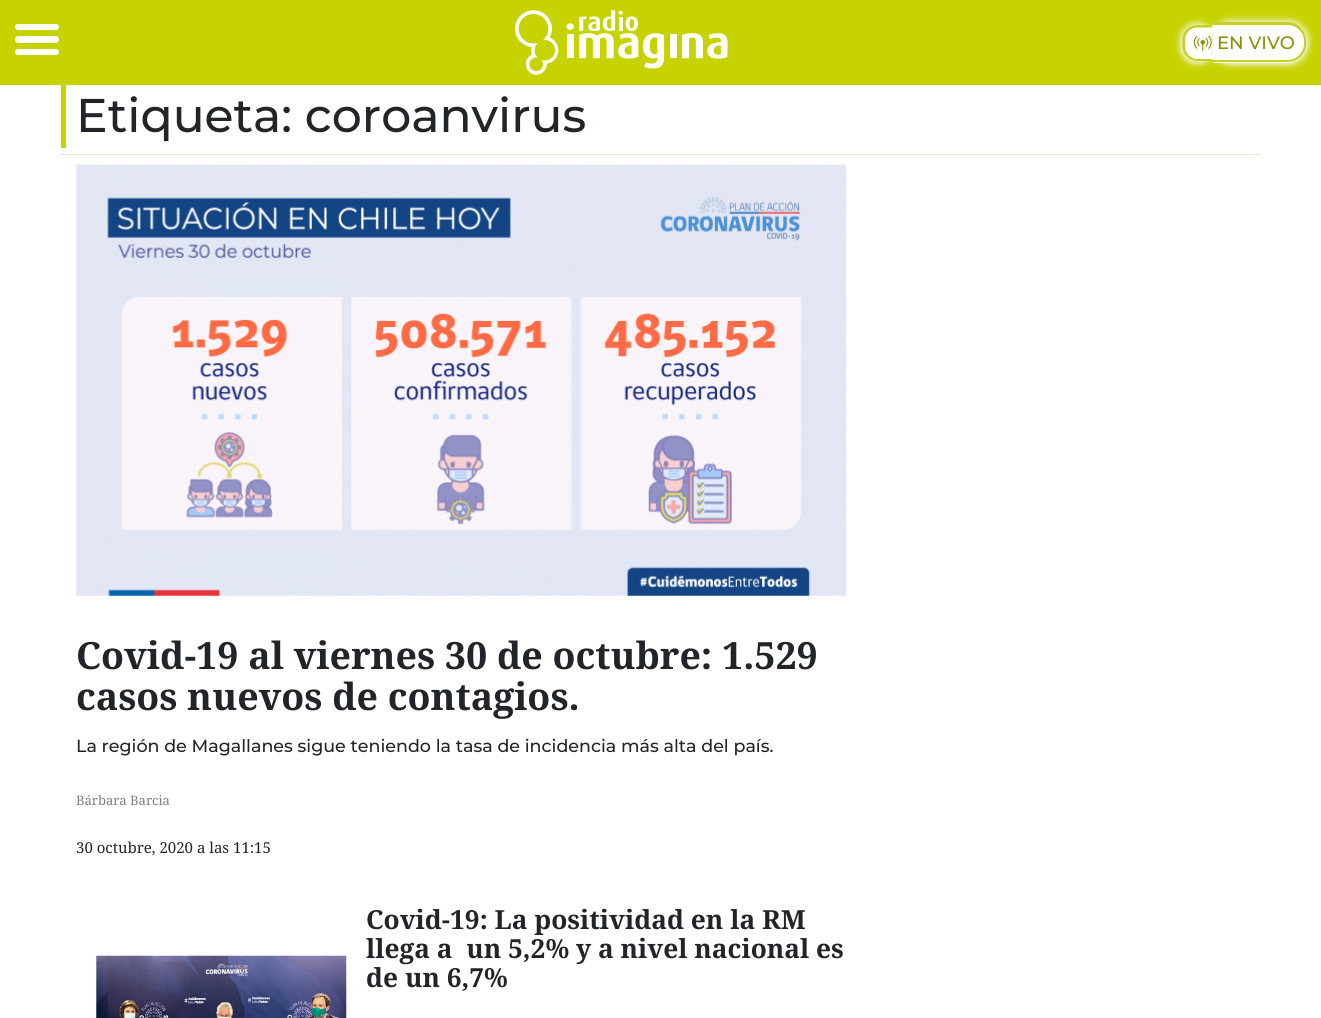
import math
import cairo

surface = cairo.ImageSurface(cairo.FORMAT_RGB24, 1321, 1018)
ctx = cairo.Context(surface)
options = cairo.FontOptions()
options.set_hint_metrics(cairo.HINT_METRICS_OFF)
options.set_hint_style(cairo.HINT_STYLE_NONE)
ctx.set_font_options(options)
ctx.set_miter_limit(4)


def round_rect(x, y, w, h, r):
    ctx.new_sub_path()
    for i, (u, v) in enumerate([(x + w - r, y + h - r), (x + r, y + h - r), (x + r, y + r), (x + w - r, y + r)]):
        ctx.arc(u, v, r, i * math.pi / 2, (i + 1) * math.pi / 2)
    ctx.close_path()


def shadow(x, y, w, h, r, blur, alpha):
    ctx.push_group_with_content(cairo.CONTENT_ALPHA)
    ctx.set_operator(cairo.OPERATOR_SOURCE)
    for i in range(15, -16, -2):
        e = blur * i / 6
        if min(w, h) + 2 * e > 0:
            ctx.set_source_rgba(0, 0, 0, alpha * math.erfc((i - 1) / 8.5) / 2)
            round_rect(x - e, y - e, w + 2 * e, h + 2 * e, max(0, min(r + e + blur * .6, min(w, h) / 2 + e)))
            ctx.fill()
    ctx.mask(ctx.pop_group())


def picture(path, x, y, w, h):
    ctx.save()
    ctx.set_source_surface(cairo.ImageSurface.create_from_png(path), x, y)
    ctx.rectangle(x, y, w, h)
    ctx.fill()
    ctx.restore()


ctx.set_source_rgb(1, 1, 1)
ctx.paint()
ctx.set_source_rgb(0.78, 0.827, 0)
ctx.rectangle(61, 81, 5, 67)
ctx.fill()
ctx.rectangle(0, 0, 1321, 85)
ctx.fill()
ctx.set_source_rgb(1, 1, 1)
round_rect(15, 24, 44, 6, 3)
ctx.fill()
round_rect(15, 36, 44, 7, 3.5)
ctx.fill()
round_rect(15, 49, 44, 6, 3)
ctx.fill()
picture("img1.png", 515, 10, 213, 65)
ctx.set_source_rgb(0.949, 0.957, 0.859)
shadow(1180, 23, 35, 41, 17.5, 3, 1)
ctx.set_source_rgb(1, 1, 1)
ctx.new_path()
ctx.move_to(1198, 25)
ctx.line_to(1213, 25)
ctx.line_to(1213, 61)
ctx.line_to(1198, 61)
ctx.curve_to(1189.5, 61, 1183, 54.5, 1183, 46)
ctx.line_to(1183, 40)
ctx.curve_to(1183, 31.5, 1189.5, 25, 1198, 25)
ctx.close_path()
ctx.fill()
ctx.set_source_rgb(0.773, 0.816, 0.141)
ctx.set_fill_rule(cairo.FILL_RULE_EVEN_ODD)
ctx.new_path()
ctx.move_to(1197.5, 25)
ctx.line_to(1212.5, 25)
ctx.line_to(1212.5, 61)
ctx.line_to(1197.5, 61)
ctx.curve_to(1189, 61, 1182.5, 54.5, 1182.5, 46)
ctx.line_to(1182.5, 40)
ctx.curve_to(1182.5, 31.5, 1189, 25, 1197.5, 25)
ctx.close_path()
ctx.move_to(1197.5, 27.5)
ctx.line_to(1212.5, 27.5)
ctx.line_to(1212.5, 59)
ctx.line_to(1197.5, 59)
ctx.curve_to(1190.5, 59, 1185, 53, 1185, 46)
ctx.line_to(1185, 40)
ctx.curve_to(1185, 33, 1190.5, 27.5, 1197.5, 27.5)
ctx.close_path()
ctx.fill()
ctx.set_source_rgb(0.949, 0.957, 0.859)
shadow(1210, 20, 99, 45, 21, 3, 1)
ctx.set_source_rgb(1, 1, 1)
ctx.new_path()
ctx.move_to(1213, 23)
ctx.line_to(1287, 23)
ctx.curve_to(1297.5, 23, 1306, 31.5, 1306, 42)
ctx.line_to(1306, 44)
ctx.curve_to(1306, 54.5, 1297.5, 63, 1287, 63)
ctx.line_to(1213, 63)
ctx.close_path()
ctx.fill()
ctx.set_source_rgb(0.773, 0.816, 0.141)
ctx.new_path()
ctx.move_to(1212, 22)
ctx.line_to(1288, 22)
ctx.curve_to(1298, 22, 1306, 31, 1306, 41)
ctx.line_to(1306, 44)
ctx.curve_to(1306, 54, 1298, 62, 1288, 62)
ctx.line_to(1212, 62)
ctx.close_path()
ctx.move_to(1212, 25)
ctx.line_to(1288, 25)
ctx.curve_to(1296, 25, 1304, 32, 1304, 41)
ctx.line_to(1304, 44)
ctx.curve_to(1304, 53, 1296, 60, 1288, 60)
ctx.line_to(1212, 60)
ctx.close_path()
ctx.fill()
picture("img2.png", 1193, 35, 19, 17)
ctx.select_font_face("Montserrat Medium")
ctx.set_font_size(18)
ctx.set_source_rgb(0.529, 0.565, 0.027)
ctx.move_to(1217, 49)
ctx.show_text("EN VIVO")
ctx.set_source_rgb(0.906, 0.914, 0.804)
ctx.rectangle(61, 154, 1200, 1)
ctx.fill()
ctx.set_font_size(47.25)
ctx.set_source_rgb(0.129, 0.145, 0.161)
ctx.move_to(76, 132)
ctx.show_text("Etiqueta: coroanvirus")
picture("img3.png", 76, 164, 771, 432)
ctx.select_font_face("Noto Serif", cairo.FONT_SLANT_NORMAL, cairo.FONT_WEIGHT_BOLD)
ctx.set_font_size(37.5)
ctx.move_to(76, 669)
ctx.show_text("Covid-19 al viernes 30 de octubre: 1.529")
ctx.move_to(76, 710)
ctx.show_text("casos nuevos de contagios.")
ctx.select_font_face("Montserrat Medium")
ctx.set_font_size(17.5)
ctx.move_to(76, 752)
ctx.show_text("La región de Magallanes sigue teniendo la tasa de incidencia más alta del país.")
ctx.select_font_face("Noto Serif")
ctx.set_font_size(13)
ctx.set_source_rgb(0.506, 0.506, 0.506)
ctx.move_to(76, 805)
ctx.show_text("Bárbara Barcia")
ctx.set_font_size(15)
ctx.set_source_rgb(0.129, 0.145, 0.161)
ctx.move_to(76, 853)
ctx.show_text("30 octubre, 2020 a las 11:15")
picture("img4.png", 96, 955, 251, 63)
ctx.select_font_face("Noto Serif", cairo.FONT_SLANT_NORMAL, cairo.FONT_WEIGHT_BOLD)
ctx.set_font_size(26.25)
ctx.move_to(366, 929)
ctx.show_text("Covid-19: La positividad en la RM")
ctx.move_to(366, 958)
ctx.show_text("llega a  un 5,2% y a nivel nacional es")
ctx.move_to(366, 987)
ctx.show_text("de un 6,7%")
surface.write_to_png("page.png")
